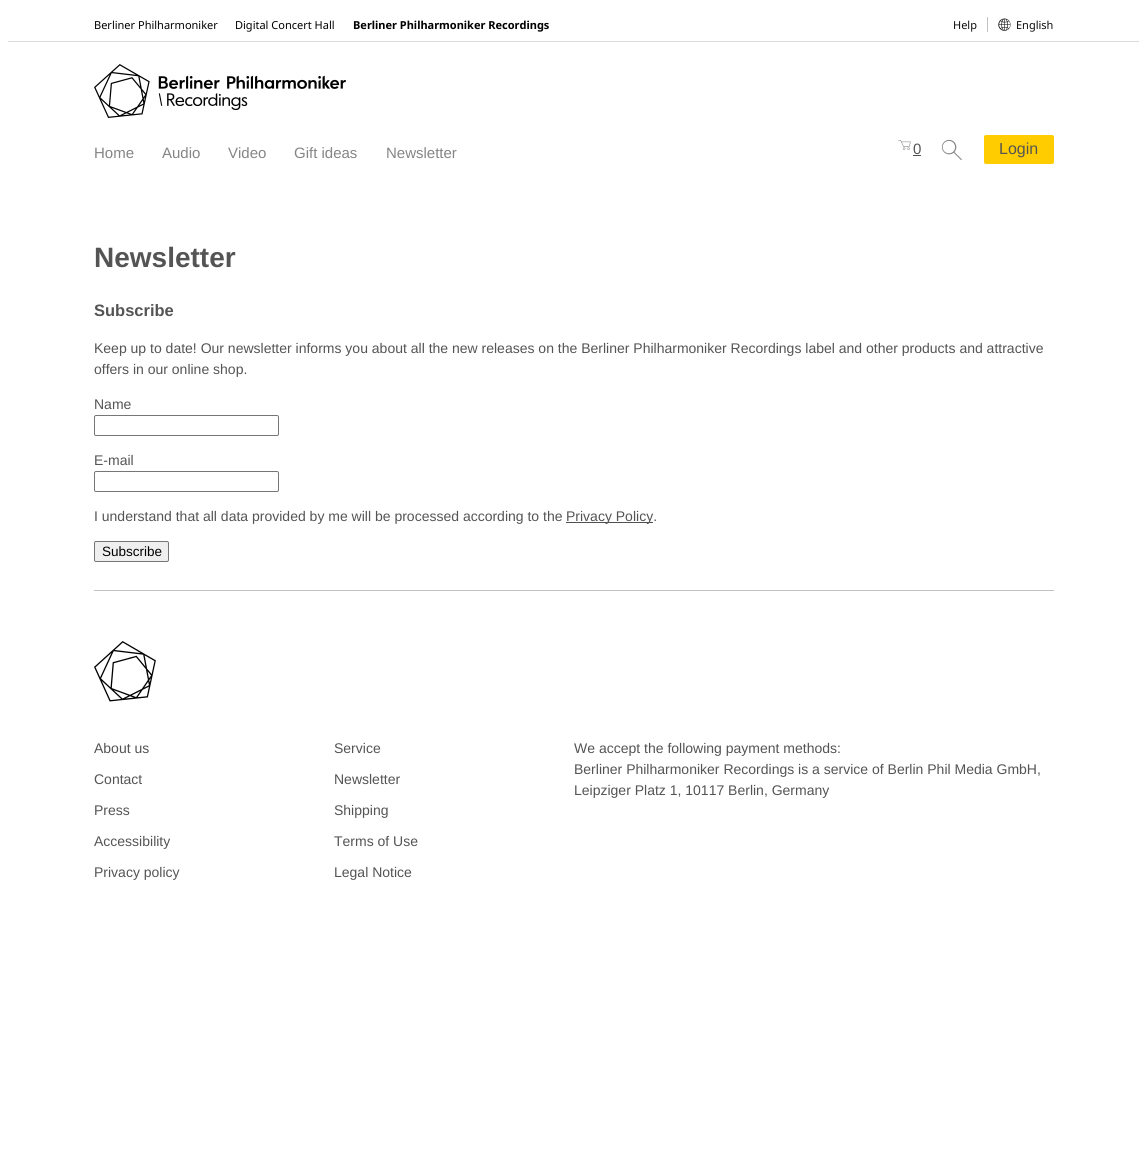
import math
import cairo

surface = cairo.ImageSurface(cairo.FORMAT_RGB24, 1147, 1153)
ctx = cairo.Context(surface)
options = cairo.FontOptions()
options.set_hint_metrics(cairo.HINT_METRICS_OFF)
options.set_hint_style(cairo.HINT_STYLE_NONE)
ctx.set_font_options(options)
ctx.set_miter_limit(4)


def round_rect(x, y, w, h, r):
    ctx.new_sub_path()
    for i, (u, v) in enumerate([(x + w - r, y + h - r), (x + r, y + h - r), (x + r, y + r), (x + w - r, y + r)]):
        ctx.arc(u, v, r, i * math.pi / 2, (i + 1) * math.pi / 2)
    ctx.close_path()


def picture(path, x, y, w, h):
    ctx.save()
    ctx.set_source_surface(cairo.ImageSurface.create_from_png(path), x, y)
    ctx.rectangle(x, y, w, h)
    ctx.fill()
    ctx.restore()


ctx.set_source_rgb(1, 1, 1)
ctx.paint()
ctx.set_source_rgb(0.855, 0.855, 0.855)
ctx.rectangle(8, 41, 1131, 1)
ctx.fill()
ctx.select_font_face("Noto Sans")
ctx.set_font_size(11)
ctx.set_source_rgb(0, 0, 0)
ctx.move_to(94, 29)
ctx.show_text("Berliner Philharmoniker")
ctx.move_to(235, 29)
ctx.show_text("Digital Concert Hall")
ctx.select_font_face("Noto Sans", cairo.FONT_SLANT_NORMAL, cairo.FONT_WEIGHT_BOLD)
ctx.move_to(353, 29)
ctx.show_text("Berliner Philharmoniker Recordings")
ctx.set_source_rgb(0.761, 0.761, 0.761)
ctx.rectangle(987, 17, 1, 15)
ctx.fill()
ctx.select_font_face("Noto Sans")
ctx.set_source_rgb(0.047, 0.047, 0.047)
ctx.move_to(953, 29)
ctx.show_text("Help")
picture("img1.png", 998, 18, 13, 13)
ctx.move_to(1016, 29)
ctx.show_text("English")
picture("img2.png", 94, 64, 252, 54)
ctx.select_font_face("Liberation Sans")
ctx.set_font_size(15)
ctx.set_source_rgb(0.522, 0.522, 0.522)
ctx.move_to(94, 158)
ctx.show_text("Home")
ctx.move_to(162, 158)
ctx.show_text("Audio")
ctx.move_to(228, 158)
ctx.show_text("Video")
ctx.move_to(294, 158)
ctx.show_text("Gift ideas")
ctx.move_to(386, 158)
ctx.show_text("Newsletter")
picture("img3.png", 898, 140, 13, 10)
ctx.set_source_rgb(0.329, 0.329, 0.329)
ctx.move_to(913, 154)
ctx.show_text("0")
ctx.set_source_rgb(0.314, 0.314, 0.314)
ctx.rectangle(913, 155, 8, 1)
ctx.fill()
picture("img4.png", 941, 139, 21, 22)
ctx.set_source_rgb(1, 0.8, 0)
round_rect(984, 135, 70, 29, 2)
ctx.fill()
ctx.set_font_size(16)
ctx.set_source_rgb(0.329, 0.329, 0.329)
ctx.move_to(999, 154)
ctx.show_text("Login")
ctx.set_source_rgb(0.761, 0.761, 0.761)
ctx.rectangle(94, 590, 960, 1)
ctx.fill()
ctx.select_font_face("Liberation Sans", cairo.FONT_SLANT_NORMAL, cairo.FONT_WEIGHT_BOLD)
ctx.set_font_size(28)
ctx.set_source_rgb(0.329, 0.329, 0.329)
ctx.move_to(94, 267)
ctx.show_text("Newsletter")
ctx.set_font_size(16.5)
ctx.move_to(94, 316)
ctx.show_text("Subscribe")
ctx.select_font_face("Liberation Sans")
ctx.set_font_size(14)
ctx.move_to(94, 353)
ctx.show_text("Keep up to date! Our newsletter informs you about all the new releases on the Berliner Philharmoniker Recordings label and other products and attractive")
ctx.move_to(94, 374)
ctx.show_text("offers in our online shop.")
ctx.move_to(94, 409)
ctx.show_text("Name")
round_rect(94.5, 415.5, 184, 20, 1.5)
ctx.set_source_rgb(0.463, 0.463, 0.463)
ctx.set_line_width(1)
ctx.stroke()
ctx.set_source_rgb(0.329, 0.329, 0.329)
ctx.move_to(94, 465)
ctx.show_text("E-mail")
round_rect(94.5, 471.5, 184, 20, 1.5)
ctx.set_source_rgb(0.463, 0.463, 0.463)
ctx.stroke()
ctx.set_source_rgb(0.329, 0.329, 0.329)
ctx.move_to(94, 521)
ctx.show_text("I understand that all data provided by me will be processed according to the")
ctx.set_source_rgb(0.314, 0.314, 0.314)
ctx.rectangle(566, 522, 87, 1)
ctx.fill()
ctx.set_source_rgb(0.329, 0.329, 0.329)
ctx.move_to(566, 521)
ctx.show_text("Privacy Policy.")
ctx.set_source_rgb(0.937, 0.937, 0.937)
round_rect(94.5, 541.5, 74, 20, 1.5)
ctx.fill_preserve()
ctx.set_source_rgb(0.463, 0.463, 0.463)
ctx.stroke()
ctx.set_font_size(13.5)
ctx.set_source_rgb(0, 0, 0)
ctx.move_to(102, 556)
ctx.show_text("Subscribe")
picture("img5.png", 94, 641, 62, 61)
ctx.set_font_size(14)
ctx.set_source_rgb(0.329, 0.329, 0.329)
ctx.move_to(94, 753)
ctx.show_text("About us")
ctx.move_to(334, 753)
ctx.show_text("Service")
ctx.move_to(94, 784)
ctx.show_text("Contact")
ctx.move_to(334, 784)
ctx.show_text("Newsletter")
ctx.move_to(94, 815)
ctx.show_text("Press")
ctx.move_to(334, 815)
ctx.show_text("Shipping")
ctx.move_to(94, 846)
ctx.show_text("Accessibility")
ctx.move_to(334, 846)
ctx.show_text("Terms of Use")
ctx.move_to(94, 877)
ctx.show_text("Privacy policy")
ctx.move_to(334, 877)
ctx.show_text("Legal Notice")
ctx.move_to(574, 753)
ctx.show_text("We accept the following payment methods:")
ctx.move_to(574, 774)
ctx.show_text("Berliner Philharmoniker Recordings is a service of Berlin Phil Media GmbH,")
ctx.move_to(574, 795)
ctx.show_text("Leipziger Platz 1, 10117 Berlin, Germany")
surface.write_to_png("page.png")
